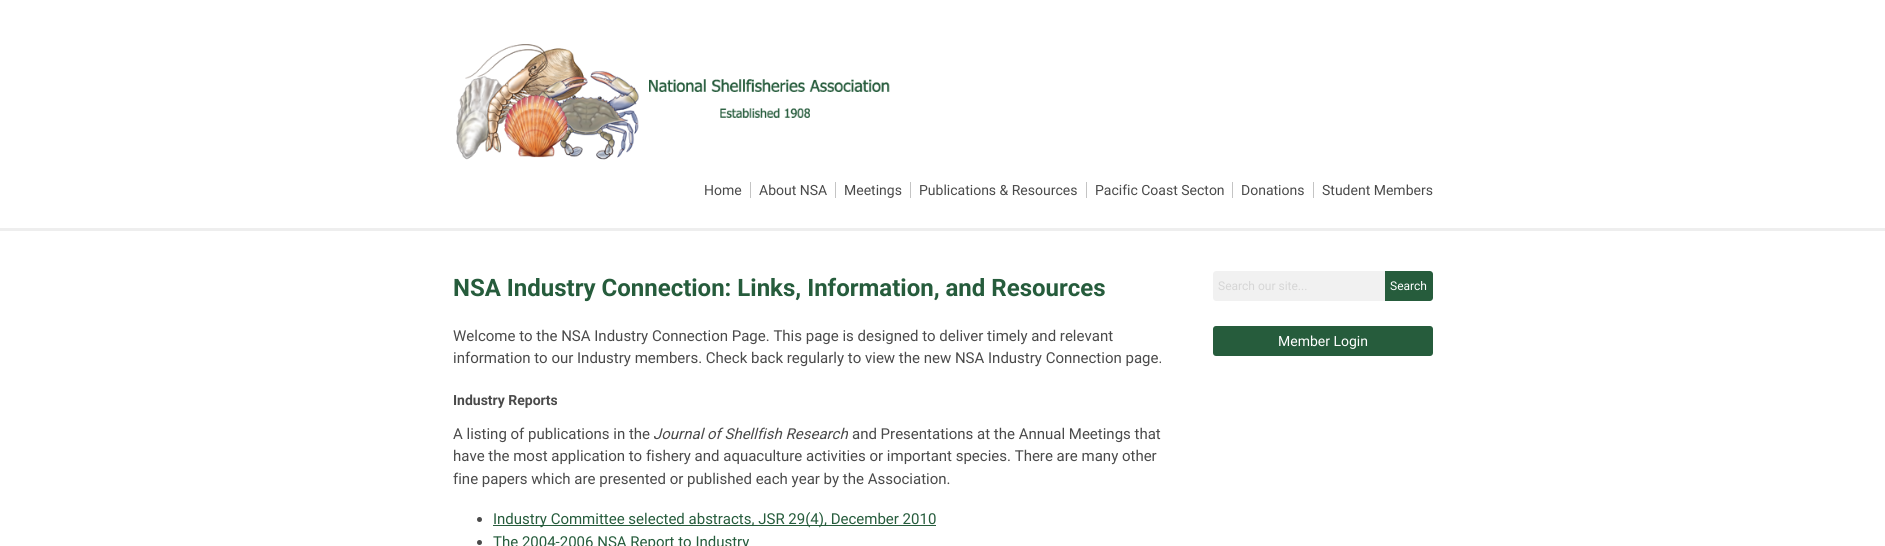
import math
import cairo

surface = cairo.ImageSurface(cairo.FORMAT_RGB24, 1885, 546)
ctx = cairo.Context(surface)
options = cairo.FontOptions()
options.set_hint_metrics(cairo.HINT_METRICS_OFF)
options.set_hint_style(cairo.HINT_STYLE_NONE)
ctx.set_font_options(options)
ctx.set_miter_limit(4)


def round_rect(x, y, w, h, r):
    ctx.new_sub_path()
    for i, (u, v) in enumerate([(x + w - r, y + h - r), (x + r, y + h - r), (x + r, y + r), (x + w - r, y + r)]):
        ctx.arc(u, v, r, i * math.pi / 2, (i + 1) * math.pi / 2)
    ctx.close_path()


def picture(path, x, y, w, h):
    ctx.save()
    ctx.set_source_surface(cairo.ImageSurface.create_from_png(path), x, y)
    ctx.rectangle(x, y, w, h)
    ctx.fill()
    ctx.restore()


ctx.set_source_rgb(1, 1, 1)
ctx.paint()
ctx.set_source_rgb(0.933, 0.933, 0.933)
ctx.rectangle(0, 228, 1885, 3)
ctx.fill()
picture("img1.png", 456, 44, 434, 116)
ctx.select_font_face("Roboto")
ctx.set_font_size(14)
ctx.set_source_rgb(0.29, 0.29, 0.29)
ctx.move_to(704, 195)
ctx.show_text("Home")
ctx.set_source_rgb(0.769, 0.769, 0.769)
ctx.rectangle(750, 182, 1, 16)
ctx.fill()
ctx.set_source_rgb(0.29, 0.29, 0.29)
ctx.move_to(759, 195)
ctx.show_text("About NSA")
ctx.set_source_rgb(0.769, 0.769, 0.769)
ctx.rectangle(835, 182, 1, 16)
ctx.fill()
ctx.set_source_rgb(0.29, 0.29, 0.29)
ctx.move_to(844, 195)
ctx.show_text("Meetings")
ctx.set_source_rgb(0.769, 0.769, 0.769)
ctx.rectangle(910, 182, 1, 16)
ctx.fill()
ctx.set_source_rgb(0.29, 0.29, 0.29)
ctx.move_to(919, 195)
ctx.show_text("Publications & Resources")
ctx.set_source_rgb(0.769, 0.769, 0.769)
ctx.rectangle(1086, 182, 1, 16)
ctx.fill()
ctx.set_source_rgb(0.29, 0.29, 0.29)
ctx.move_to(1095, 195)
ctx.show_text("Pacific Coast Secton")
ctx.set_source_rgb(0.769, 0.769, 0.769)
ctx.rectangle(1232, 182, 1, 16)
ctx.fill()
ctx.set_source_rgb(0.29, 0.29, 0.29)
ctx.move_to(1241, 195)
ctx.show_text("Donations")
ctx.set_source_rgb(0.769, 0.769, 0.769)
ctx.rectangle(1313, 182, 1, 16)
ctx.fill()
ctx.set_source_rgb(0.29, 0.29, 0.29)
ctx.move_to(1322, 195)
ctx.show_text("Student Members")
ctx.select_font_face("Roboto", cairo.FONT_SLANT_NORMAL, cairo.FONT_WEIGHT_BOLD)
ctx.set_font_size(24)
ctx.set_source_rgb(0.149, 0.361, 0.235)
ctx.move_to(453, 296)
ctx.show_text("NSA Industry Connection: Links, Information, and Resources")
ctx.select_font_face("Roboto")
ctx.set_font_size(15)
ctx.set_source_rgb(0.29, 0.29, 0.29)
ctx.move_to(453, 341)
ctx.show_text("Welcome to the NSA Industry Connection Page. This page is designed to deliver timely and relevant")
ctx.move_to(453, 363)
ctx.show_text("information to our Industry members. Check back regularly to view the new NSA Industry Connection page.")
ctx.select_font_face("Roboto", cairo.FONT_SLANT_NORMAL, cairo.FONT_WEIGHT_BOLD)
ctx.set_font_size(14)
ctx.move_to(453, 405)
ctx.show_text("Industry Reports")
ctx.select_font_face("Roboto")
ctx.set_font_size(15)
ctx.move_to(453, 439)
ctx.show_text("A listing of publications in the")
ctx.select_font_face("Roboto", cairo.FONT_SLANT_ITALIC)
ctx.move_to(653, 439)
ctx.show_text("Journal of Shellfish Research")
ctx.select_font_face("Roboto")
ctx.move_to(852, 439)
ctx.show_text("and Presentations at the Annual Meetings that")
ctx.move_to(453, 461)
ctx.show_text("have the most application to fishery and aquaculture activities or important species. There are many other")
ctx.move_to(453, 484)
ctx.show_text("fine papers which are presented or published each year by the Association.")
ctx.new_path()
ctx.arc(479.5, 519.5, 2.5, 0, 2 * math.pi)
ctx.fill()
ctx.set_source_rgb(0.149, 0.361, 0.235)
ctx.rectangle(493, 525, 443, 1)
ctx.fill()
ctx.move_to(493, 524)
ctx.show_text("Industry Committee selected abstracts, JSR 29(4), December 2010")
ctx.set_source_rgb(0.29, 0.29, 0.29)
ctx.new_path()
ctx.arc(479.5, 542.5, 2.5, 0, 2 * math.pi)
ctx.fill()
ctx.set_source_rgb(0.149, 0.361, 0.235)
ctx.move_to(493, 547)
ctx.show_text("The 2004-2006 NSA Report to Industry")
ctx.set_source_rgb(0.945, 0.945, 0.945)
ctx.new_path()
ctx.move_to(1216, 271)
ctx.line_to(1385, 271)
ctx.line_to(1385, 301)
ctx.line_to(1216, 301)
ctx.curve_to(1214.5, 301, 1213, 299.5, 1213, 298)
ctx.line_to(1213, 274)
ctx.curve_to(1213, 272.5, 1214.5, 271, 1216, 271)
ctx.close_path()
ctx.fill()
ctx.set_font_size(12)
ctx.set_source_rgb(0.839, 0.839, 0.839)
ctx.move_to(1218, 290)
ctx.show_text("Search our site...")
ctx.set_source_rgb(0.149, 0.361, 0.235)
ctx.new_path()
ctx.move_to(1385, 271)
ctx.line_to(1430, 271)
ctx.curve_to(1431.5, 271, 1433, 272.5, 1433, 274)
ctx.line_to(1433, 298)
ctx.curve_to(1433, 299.5, 1431.5, 301, 1430, 301)
ctx.line_to(1385, 301)
ctx.close_path()
ctx.fill()
ctx.set_source_rgb(1, 1, 1)
ctx.move_to(1390, 290)
ctx.show_text("Search")
ctx.set_source_rgb(0.149, 0.361, 0.235)
round_rect(1213, 326, 220, 30, 3)
ctx.fill()
ctx.set_font_size(14)
ctx.set_source_rgb(1, 1, 1)
ctx.move_to(1278, 346)
ctx.show_text("Member Login")
surface.write_to_png("page.png")
